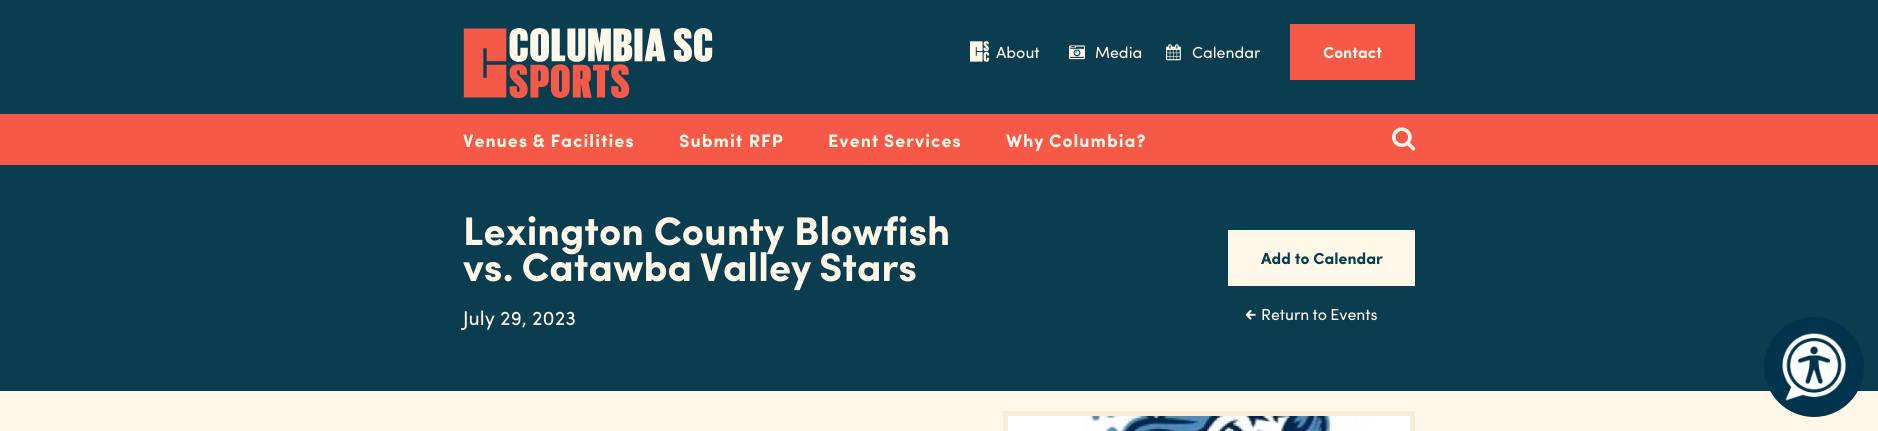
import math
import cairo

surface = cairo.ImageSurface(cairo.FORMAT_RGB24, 1878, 431)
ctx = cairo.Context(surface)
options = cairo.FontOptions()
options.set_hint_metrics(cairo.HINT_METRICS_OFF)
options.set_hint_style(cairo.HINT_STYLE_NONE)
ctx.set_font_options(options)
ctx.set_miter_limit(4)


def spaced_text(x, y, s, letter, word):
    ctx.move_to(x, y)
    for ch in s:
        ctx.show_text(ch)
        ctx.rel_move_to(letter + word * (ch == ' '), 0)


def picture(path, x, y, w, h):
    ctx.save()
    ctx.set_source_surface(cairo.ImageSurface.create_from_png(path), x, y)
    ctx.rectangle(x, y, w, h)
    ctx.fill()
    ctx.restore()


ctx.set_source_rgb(0.039, 0.239, 0.31)
ctx.paint()
picture("img1.png", 463, 28, 250, 70)
picture("img2.png", 970, 41, 19, 21)
ctx.select_font_face("Sofia")
ctx.set_font_size(16)
ctx.set_source_rgb(1, 0.969, 0.91)
ctx.move_to(996, 58)
ctx.show_text("About")
picture("img3.png", 1069, 45, 16, 15)
ctx.move_to(1095, 58)
ctx.show_text("Media")
picture("img4.png", 1166, 44, 15, 17)
ctx.move_to(1192, 58)
ctx.show_text("Calendar")
ctx.set_source_rgb(0.961, 0.349, 0.278)
ctx.rectangle(1290, 24, 125, 56)
ctx.fill()
ctx.select_font_face("Sofia", cairo.FONT_SLANT_NORMAL, cairo.FONT_WEIGHT_BOLD)
ctx.set_source_rgb(1, 0.969, 0.91)
ctx.move_to(1323, 58)
ctx.show_text("Contact")
ctx.set_source_rgb(0.961, 0.349, 0.278)
ctx.rectangle(0, 114, 1878, 51)
ctx.fill()
ctx.set_font_size(18)
ctx.set_source_rgb(1, 0.969, 0.91)
spaced_text(463, 147, "Venues & Facilities", 1, -1)
spaced_text(679, 147, "Submit RFP", 1, 0)
spaced_text(828, 147, "Event Services", 1, -1)
spaced_text(1006, 147, "Why Columbia?", 1, -1)
picture("img5.png", 1392, 127, 24, 24)
ctx.set_font_size(40)
ctx.move_to(463, 245)
ctx.show_text("Lexington County Blowfish")
spaced_text(463, 281, "vs. Catawba Valley Stars", 0, -2)
ctx.select_font_face("Sofia")
ctx.set_font_size(20)
ctx.move_to(463, 325)
ctx.show_text("July 29, 2023")
ctx.rectangle(1228, 230, 187, 56)
ctx.fill()
ctx.select_font_face("Sofia", cairo.FONT_SLANT_NORMAL, cairo.FONT_WEIGHT_BOLD)
ctx.set_font_size(16)
ctx.set_source_rgb(0.039, 0.239, 0.31)
ctx.move_to(1261, 264)
ctx.show_text("Add to Calendar")
picture("img6.png", 1246, 310, 10, 10)
ctx.select_font_face("Sofia")
ctx.set_source_rgb(1, 0.969, 0.91)
spaced_text(1261, 320, "Return to Events", 0, -1)
ctx.rectangle(0, 391, 139, 40)
ctx.fill()
ctx.rectangle(139, 391, 1739, 40)
ctx.fill()
ctx.rectangle(1005.5, 413.5, 407, 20)
ctx.set_source_rgb(0.973, 0.925, 0.843)
ctx.set_line_width(5)
ctx.stroke()
picture("img7.png", 1008, 416, 402, 15)
ctx.set_source_rgb(0, 0.204, 0.298)
ctx.arc(1814, 367, 50, 0, 2 * math.pi)
ctx.fill()
picture("img8.png", 1782, 333, 64, 68)
surface.write_to_png("page.png")
